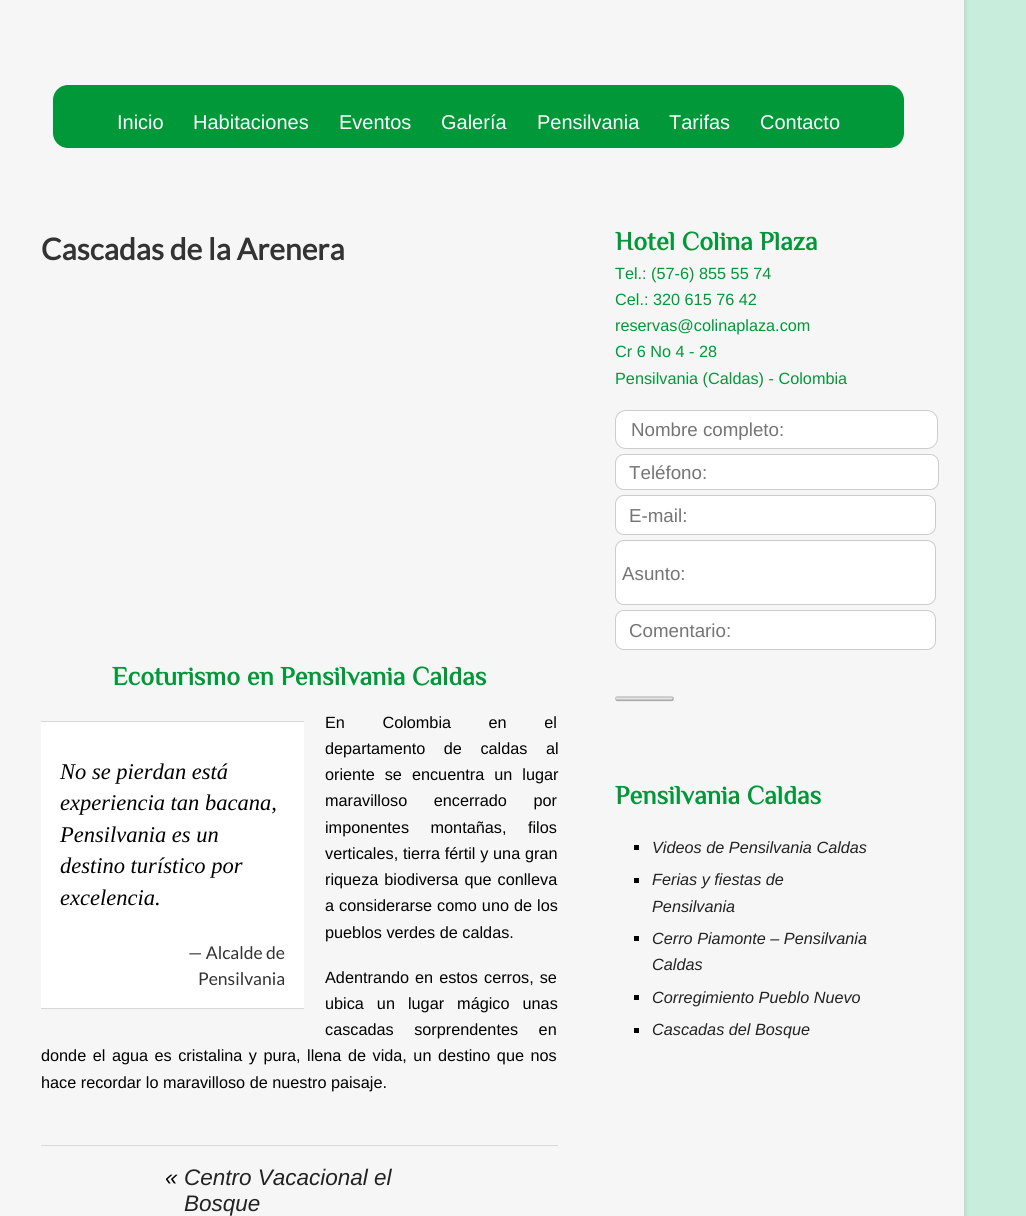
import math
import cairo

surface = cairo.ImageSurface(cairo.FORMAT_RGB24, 1026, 1216)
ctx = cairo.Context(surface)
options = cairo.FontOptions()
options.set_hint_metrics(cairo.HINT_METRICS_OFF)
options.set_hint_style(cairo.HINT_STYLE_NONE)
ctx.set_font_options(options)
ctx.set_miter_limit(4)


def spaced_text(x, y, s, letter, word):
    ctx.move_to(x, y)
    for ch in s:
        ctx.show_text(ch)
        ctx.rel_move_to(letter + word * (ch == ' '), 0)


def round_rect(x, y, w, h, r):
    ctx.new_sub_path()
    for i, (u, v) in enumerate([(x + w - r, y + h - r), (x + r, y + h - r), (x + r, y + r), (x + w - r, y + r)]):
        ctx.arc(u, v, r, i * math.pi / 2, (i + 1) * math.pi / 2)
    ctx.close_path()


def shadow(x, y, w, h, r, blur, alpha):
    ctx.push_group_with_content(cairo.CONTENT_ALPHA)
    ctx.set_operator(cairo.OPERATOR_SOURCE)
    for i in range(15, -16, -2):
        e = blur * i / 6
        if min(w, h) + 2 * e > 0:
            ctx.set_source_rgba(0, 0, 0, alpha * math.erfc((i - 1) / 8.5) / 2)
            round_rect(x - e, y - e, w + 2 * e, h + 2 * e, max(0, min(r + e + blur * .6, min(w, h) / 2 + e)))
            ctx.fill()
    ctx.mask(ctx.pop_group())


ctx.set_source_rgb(0.784, 0.929, 0.863)
ctx.paint()
ctx.set_source_rgb(0, 0, 0)
shadow(-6, -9, 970, 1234, 0, 3, 0.15)
ctx.set_source_rgb(0.961, 0.961, 0.961)
ctx.rectangle(0, 0, 964, 1216)
ctx.fill()
ctx.set_source_rgb(0.004, 0.596, 0.224)
round_rect(53, 85, 851, 63, 15)
ctx.fill()
ctx.select_font_face("Liberation Sans")
ctx.set_font_size(20)
ctx.set_source_rgb(1, 1, 1)
ctx.move_to(117, 129)
ctx.show_text("Inicio")
ctx.move_to(193, 129)
ctx.show_text("Habitaciones")
ctx.move_to(339, 129)
ctx.show_text("Eventos")
ctx.move_to(441, 129)
ctx.show_text("Galería")
ctx.move_to(537, 129)
ctx.show_text("Pensilvania")
ctx.move_to(669, 129)
ctx.show_text("Tarifas")
ctx.move_to(760, 129)
ctx.show_text("Contacto")
ctx.select_font_face("Lato", cairo.FONT_SLANT_NORMAL, cairo.FONT_WEIGHT_BOLD)
ctx.set_font_size(30)
ctx.set_source_rgb(0.2, 0.2, 0.2)
ctx.move_to(41, 260)
ctx.show_text("Cascadas de la Arenera")
ctx.select_font_face("Philosopher", cairo.FONT_SLANT_NORMAL, cairo.FONT_WEIGHT_BOLD)
ctx.set_font_size(26.25)
ctx.set_source_rgb(0.004, 0.596, 0.224)
ctx.move_to(112, 685)
ctx.show_text("Ecoturismo en Pensilvania Caldas")
ctx.set_source_rgb(1, 1, 1)
ctx.rectangle(41, 722, 263, 286)
ctx.fill()
ctx.set_source_rgb(0.843, 0.843, 0.843)
ctx.rectangle(41, 721, 263, 1)
ctx.fill()
ctx.rectangle(41, 1008, 263, 1)
ctx.fill()
ctx.select_font_face("Liberation Serif", cairo.FONT_SLANT_ITALIC)
ctx.set_font_size(22.5)
ctx.set_source_rgb(0, 0, 0)
ctx.move_to(60, 779)
ctx.show_text("No se pierdan está")
ctx.move_to(60, 810)
ctx.show_text("experiencia tan bacana,")
ctx.move_to(60, 842)
ctx.show_text("Pensilvania es un")
ctx.move_to(60, 873)
ctx.show_text("destino turístico por")
ctx.move_to(60, 905)
ctx.show_text("excelencia.")
ctx.select_font_face("Lato")
ctx.set_font_size(17.5)
ctx.set_source_rgb(0.2, 0.2, 0.2)
ctx.move_to(188, 959)
ctx.show_text("— Alcalde de")
ctx.move_to(198, 985)
ctx.show_text("Pensilvania")
ctx.select_font_face("Liberation Sans")
ctx.set_font_size(16.25)
ctx.set_source_rgb(0, 0, 0)
spaced_text(325, 728, "En Colombia en el", 0, 33)
spaced_text(325, 754, "departamento de caldas al", 0, 14)
spaced_text(325, 780, "oriente se encuentra un lugar", 0, 5.5)
spaced_text(325, 806, "maravilloso encerrado por", 0, 22)
spaced_text(325, 833, "imponentes montañas, filos", 0, 17)
spaced_text(325, 859, "verticales, tierra fértil y una gran", 0, 0.25)
spaced_text(325, 885, "riqueza biodiversa que conlleva", 0, 1.5)
spaced_text(325, 911, "a considerarse como uno de los", 0, 0.5)
ctx.move_to(325, 938)
ctx.show_text("pueblos verdes de caldas.")
spaced_text(325, 983, "Adentrando en estos cerros, se", 0, 1.5)
spaced_text(325, 1009, "ubica un lugar mágico unas", 0, 8.5)
spaced_text(325, 1035, "cascadas sorprendentes en", 0, 16)
spaced_text(41, 1061, "donde el agua es cristalina y pura, llena de vida, un destino que nos", 0, 2)
ctx.move_to(41, 1088)
ctx.show_text("hace recordar lo maravilloso de nuestro paisaje.")
ctx.set_source_rgb(0.851, 0.851, 0.851)
ctx.rectangle(41, 1145, 517, 1)
ctx.fill()
ctx.select_font_face("Liberation Sans", cairo.FONT_SLANT_ITALIC)
ctx.set_font_size(22.5)
ctx.set_source_rgb(0, 0, 0)
ctx.move_to(165, 1185)
ctx.show_text("«")
ctx.set_source_rgb(0.133, 0.133, 0.133)
ctx.move_to(184, 1185)
ctx.show_text("Centro Vacacional el")
ctx.move_to(184, 1211)
ctx.show_text("Bosque")
ctx.select_font_face("Philosopher", cairo.FONT_SLANT_NORMAL, cairo.FONT_WEIGHT_BOLD)
ctx.set_font_size(26.25)
ctx.set_source_rgb(0.004, 0.596, 0.224)
ctx.move_to(615, 250)
ctx.show_text("Hotel Colina Plaza")
ctx.select_font_face("Liberation Sans")
ctx.set_font_size(16.25)
ctx.move_to(615, 279)
ctx.show_text("Tel.: (57-6) 855 55 74")
ctx.move_to(615, 305)
ctx.show_text("Cel.: 320 615 76 42")
ctx.move_to(615, 331)
ctx.show_text("reservas@colinaplaza.com")
ctx.move_to(615, 357)
ctx.show_text("Cr 6 No 4 - 28")
ctx.move_to(615, 384)
ctx.show_text("Pensilvania (Caldas) - Colombia")
ctx.set_source_rgb(1, 1, 1)
round_rect(615.5, 410.5, 322, 38, 10.5)
ctx.fill_preserve()
ctx.set_source_rgb(0.8, 0.8, 0.8)
ctx.set_line_width(1)
ctx.stroke()
ctx.set_font_size(18.75)
ctx.set_source_rgb(0.459, 0.459, 0.459)
ctx.move_to(631, 436)
ctx.show_text("Nombre completo:")
ctx.set_source_rgb(1, 1, 1)
round_rect(615.5, 454.5, 323, 35, 8.5)
ctx.fill_preserve()
ctx.set_source_rgb(0.8, 0.8, 0.8)
ctx.stroke()
ctx.set_source_rgb(0.459, 0.459, 0.459)
ctx.move_to(629, 479)
ctx.show_text("Teléfono:")
ctx.set_source_rgb(1, 1, 1)
round_rect(615.5, 495.5, 320, 39, 8.5)
ctx.fill_preserve()
ctx.set_source_rgb(0.8, 0.8, 0.8)
ctx.stroke()
ctx.set_source_rgb(0.459, 0.459, 0.459)
ctx.move_to(629, 522)
ctx.show_text("E-mail:")
ctx.set_source_rgb(1, 1, 1)
round_rect(615.5, 540.5, 320, 64, 8.5)
ctx.fill_preserve()
ctx.set_source_rgb(0.8, 0.8, 0.8)
ctx.stroke()
ctx.set_source_rgb(0.459, 0.459, 0.459)
ctx.move_to(622, 580)
ctx.show_text("Asunto:")
ctx.set_source_rgb(1, 1, 1)
round_rect(615.5, 610.5, 320, 39, 8.5)
ctx.fill_preserve()
ctx.set_source_rgb(0.8, 0.8, 0.8)
ctx.stroke()
ctx.set_source_rgb(0.459, 0.459, 0.459)
ctx.move_to(629, 637)
ctx.show_text("Comentario:")
ctx.save()
round_rect(615, 696, 59, 5, 2.5)
ctx.clip()
gradient = cairo.LinearGradient(644, 695, 644, 698)
gradient.add_color_stop_rgba(0, 0.945, 0.945, 0.945, 1)
gradient.add_color_stop_rgba(1, 0.745, 0.745, 0.745, 1)
ctx.set_source(gradient)
ctx.rectangle(615, 696, 59, 2)
ctx.fill()
gradient = cairo.LinearGradient(644, 698, 644, 700)
gradient.add_color_stop_rgba(0, 0.945, 0.945, 0.945, 1)
gradient.add_color_stop_rgba(1, 0.745, 0.745, 0.745, 1)
ctx.set_source(gradient)
ctx.new_path()
ctx.move_to(615, 698)
ctx.line_to(674, 698)
ctx.line_to(674, 698.5)
ctx.curve_to(674, 700, 673, 701, 671.5, 701)
ctx.line_to(617.5, 701)
ctx.curve_to(616, 701, 615, 700, 615, 698.5)
ctx.close_path()
ctx.fill()
ctx.restore()
ctx.new_path()
ctx.move_to(672.5, 697.5)
ctx.curve_to(673.5, 698.5, 673, 700, 672, 700.5)
ctx.line_to(617.5, 700.5)
ctx.line_to(616, 700)
ctx.set_source_rgb(0.667, 0.667, 0.667)
ctx.set_line_width(1.2)
ctx.stroke()
ctx.new_path()
ctx.move_to(616, 700)
ctx.curve_to(615, 699, 615.5, 697.5, 617, 697)
ctx.line_to(671, 697)
ctx.line_to(672.5, 697.5)
ctx.set_source_rgb(0.8, 0.8, 0.8)
ctx.stroke()
ctx.select_font_face("Philosopher", cairo.FONT_SLANT_NORMAL, cairo.FONT_WEIGHT_BOLD)
ctx.set_font_size(26.25)
ctx.set_source_rgb(0.004, 0.596, 0.224)
ctx.move_to(615, 804)
ctx.show_text("Pensilvania Caldas")
ctx.set_source_rgb(0, 0, 0)
ctx.rectangle(634, 845, 5, 5)
ctx.fill()
ctx.select_font_face("Liberation Sans", cairo.FONT_SLANT_ITALIC)
ctx.set_font_size(16.25)
ctx.set_source_rgb(0.133, 0.133, 0.133)
ctx.move_to(652, 853)
ctx.show_text("Videos de Pensilvania Caldas")
ctx.set_source_rgb(0, 0, 0)
ctx.rectangle(634, 878, 5, 5)
ctx.fill()
ctx.set_source_rgb(0.133, 0.133, 0.133)
ctx.move_to(652, 885)
ctx.show_text("Ferias y fiestas de")
ctx.move_to(652, 912)
ctx.show_text("Pensilvania")
ctx.set_source_rgb(0, 0, 0)
ctx.rectangle(634, 936, 5, 5)
ctx.fill()
ctx.set_source_rgb(0.133, 0.133, 0.133)
ctx.move_to(652, 944)
ctx.show_text("Cerro Piamonte – Pensilvania")
ctx.move_to(652, 970)
ctx.show_text("Caldas")
ctx.set_source_rgb(0, 0, 0)
ctx.rectangle(634, 995, 5, 5)
ctx.fill()
ctx.set_source_rgb(0.133, 0.133, 0.133)
ctx.move_to(652, 1003)
ctx.show_text("Corregimiento Pueblo Nuevo")
ctx.set_source_rgb(0, 0, 0)
ctx.rectangle(634, 1028, 5, 5)
ctx.fill()
ctx.set_source_rgb(0.133, 0.133, 0.133)
ctx.move_to(652, 1035)
ctx.show_text("Cascadas del Bosque")
surface.write_to_png("page.png")
